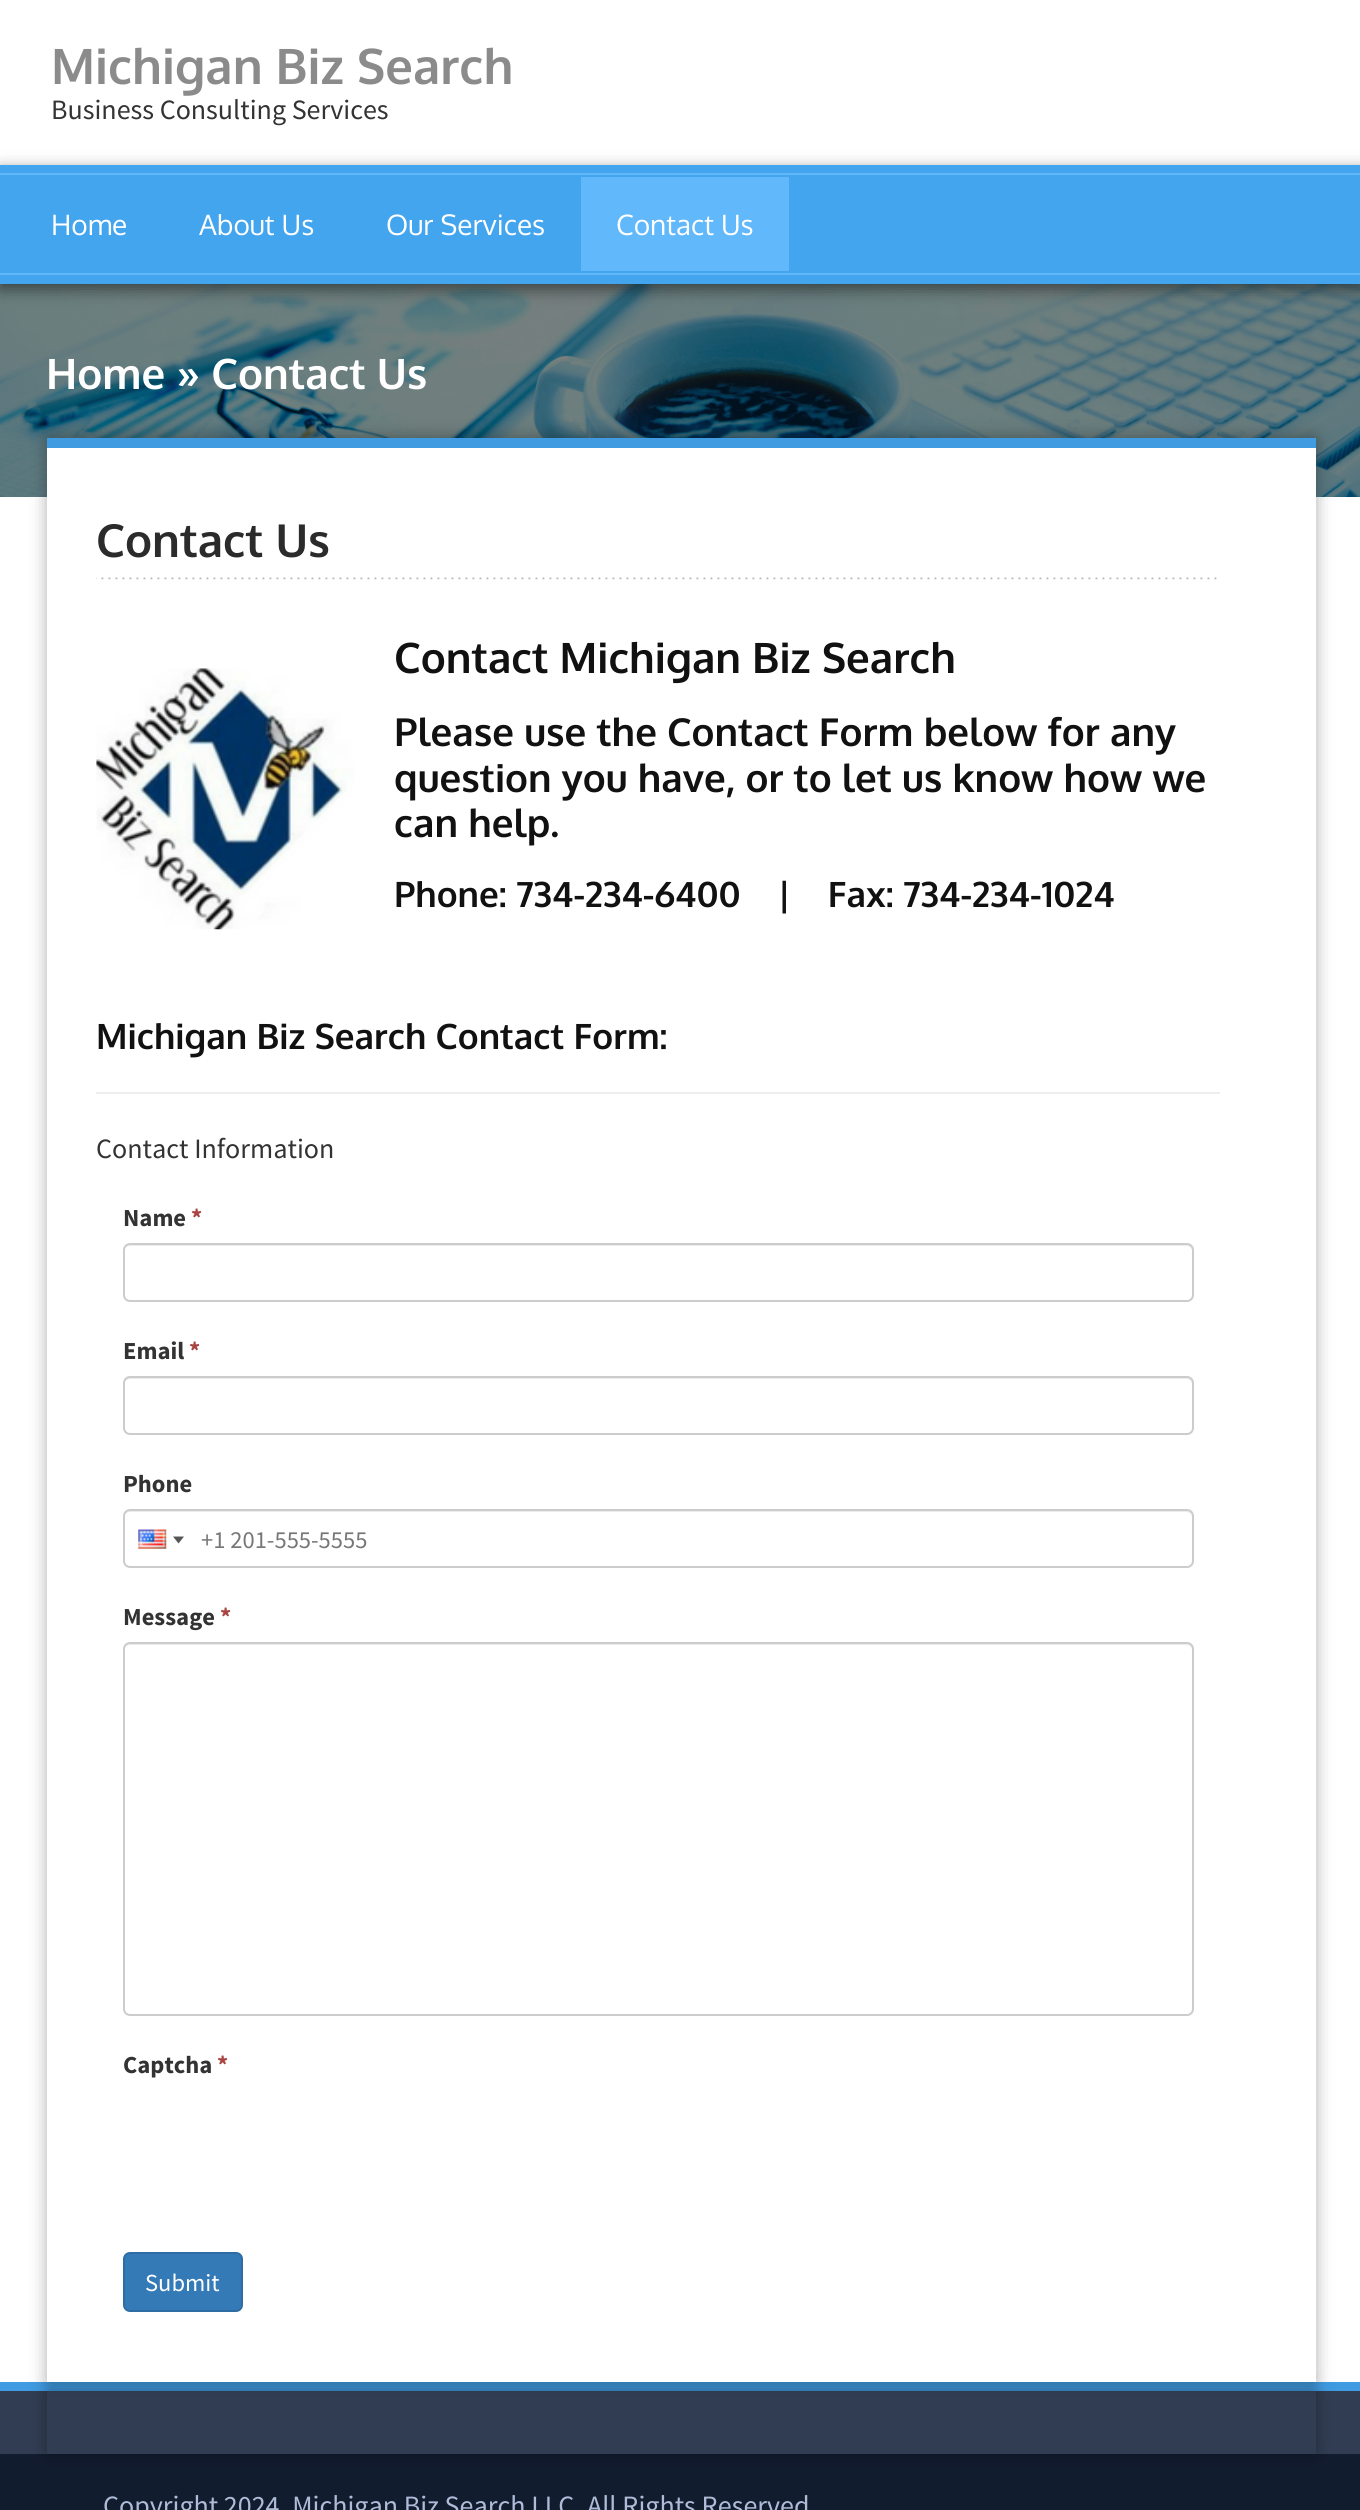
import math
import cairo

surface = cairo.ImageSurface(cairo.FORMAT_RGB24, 1360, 2510)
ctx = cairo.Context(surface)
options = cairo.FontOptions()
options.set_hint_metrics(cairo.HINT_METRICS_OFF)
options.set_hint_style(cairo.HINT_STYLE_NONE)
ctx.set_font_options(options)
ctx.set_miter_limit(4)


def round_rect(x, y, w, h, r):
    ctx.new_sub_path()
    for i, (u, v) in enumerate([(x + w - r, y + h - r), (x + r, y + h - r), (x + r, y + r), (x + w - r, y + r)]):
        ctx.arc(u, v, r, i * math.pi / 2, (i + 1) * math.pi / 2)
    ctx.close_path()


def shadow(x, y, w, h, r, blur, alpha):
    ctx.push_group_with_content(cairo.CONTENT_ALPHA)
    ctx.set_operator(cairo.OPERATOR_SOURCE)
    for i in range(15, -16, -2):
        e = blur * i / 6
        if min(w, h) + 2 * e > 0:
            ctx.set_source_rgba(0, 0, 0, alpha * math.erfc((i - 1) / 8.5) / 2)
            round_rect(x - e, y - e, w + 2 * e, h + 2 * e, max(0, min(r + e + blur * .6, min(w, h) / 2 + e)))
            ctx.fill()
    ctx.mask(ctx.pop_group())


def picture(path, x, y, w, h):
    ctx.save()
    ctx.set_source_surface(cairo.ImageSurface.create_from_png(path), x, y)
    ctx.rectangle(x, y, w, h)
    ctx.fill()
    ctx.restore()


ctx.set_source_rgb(1, 1, 1)
ctx.paint()
ctx.select_font_face("Oxygen", cairo.FONT_SLANT_NORMAL, cairo.FONT_WEIGHT_BOLD)
ctx.set_font_size(49)
ctx.set_source_rgb(0.545, 0.545, 0.545)
ctx.move_to(51, 84)
ctx.show_text("Michigan Biz Search")
ctx.select_font_face("Source Sans Pro")
ctx.set_font_size(28)
ctx.set_source_rgb(0.2, 0.2, 0.2)
ctx.move_to(51, 119)
ctx.show_text("Business Consulting Services")
picture("img1.png", 0, 284, 1360, 213)
ctx.set_source_rgb(0, 0, 0)
shadow(0, 170, 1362, 119, 0, 8, 0.5)
ctx.set_source_rgb(0.267, 0.647, 0.937)
ctx.rectangle(0, 165, 1360, 119)
ctx.fill()
ctx.set_source_rgb(0.38, 0.722, 0.98)
ctx.rectangle(0, 173, 1360, 2)
ctx.fill()
ctx.rectangle(0, 273, 1360, 2)
ctx.fill()
ctx.select_font_face("Oxygen")
ctx.set_source_rgb(1, 1, 1)
ctx.move_to(51, 235)
ctx.show_text("Home")
ctx.move_to(199, 235)
ctx.show_text("About Us")
ctx.move_to(386, 235)
ctx.show_text("Our Services")
ctx.set_source_rgb(0.38, 0.722, 0.98)
ctx.rectangle(581, 177, 208, 94)
ctx.fill()
ctx.set_source_rgb(1, 1, 1)
ctx.move_to(616, 235)
ctx.show_text("Contact Us")
ctx.select_font_face("Oxygen", cairo.FONT_SLANT_NORMAL, cairo.FONT_WEIGHT_BOLD)
ctx.set_font_size(42)
ctx.move_to(46, 389)
ctx.show_text("Home » Contact Us")
ctx.set_source_rgb(0.192, 0.239, 0.325)
ctx.rectangle(0, 2391, 1360, 63)
ctx.fill()
ctx.set_source_rgb(0.251, 0.608, 0.882)
ctx.rectangle(0, 2382, 1360, 9)
ctx.fill()
ctx.set_source_rgb(0, 0, 0)
shadow(49, 439, 1265, 1941, 0, 9, 0.4)
ctx.set_source_rgb(0.071, 0.11, 0.184)
ctx.rectangle(0, 2454, 1360, 56)
ctx.fill()
ctx.save()
ctx.set_fill_rule(cairo.FILL_RULE_EVEN_ODD)
ctx.new_path()
ctx.move_to(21, 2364)
ctx.line_to(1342, 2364)
ctx.line_to(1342, 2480)
ctx.line_to(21, 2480)
ctx.close_path()
ctx.move_to(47, 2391)
ctx.line_to(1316, 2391)
ctx.line_to(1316, 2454)
ctx.line_to(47, 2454)
ctx.close_path()
ctx.clip()
ctx.set_source_rgb(0, 0, 0)
shadow(49, 2392, 1265, 60, 0, 9, 0.4)
ctx.restore()
ctx.set_source_rgb(1, 1, 1)
ctx.rectangle(47, 448, 1269, 1934)
ctx.fill()
ctx.set_source_rgb(0.251, 0.608, 0.882)
ctx.rectangle(47, 438, 1269, 10)
ctx.fill()
picture("img2.png", 96, 577, 1121, 3)
ctx.set_font_size(45.5)
ctx.set_source_rgb(0.169, 0.169, 0.169)
ctx.move_to(96, 557)
ctx.show_text("Contact Us")
ctx.set_font_size(42)
ctx.set_source_rgb(0.067, 0.067, 0.067)
ctx.move_to(394, 673)
ctx.show_text("Contact Michigan Biz Search")
picture("img3.png", 96, 668, 259, 262)
ctx.set_font_size(38.5)
ctx.move_to(394, 746)
ctx.show_text("Please use the Contact Form below for any")
ctx.move_to(394, 792)
ctx.show_text("question you have, or to let us know how we")
ctx.move_to(394, 837)
ctx.show_text("can help.")
ctx.set_font_size(35)
ctx.move_to(394, 907)
ctx.show_text("Phone: 734-234-6400    |    Fax: 734-234-1024")
ctx.move_to(96, 1049)
ctx.show_text("Michigan Biz Search Contact Form:")
ctx.set_source_rgb(0.933, 0.933, 0.933)
ctx.rectangle(96, 1092, 1124, 2)
ctx.fill()
ctx.select_font_face("Source Sans Pro")
ctx.set_font_size(28)
ctx.set_source_rgb(0.2, 0.2, 0.2)
ctx.move_to(96, 1158)
ctx.show_text("Contact Information")
ctx.select_font_face("Source Sans Pro", cairo.FONT_SLANT_NORMAL, cairo.FONT_WEIGHT_BOLD)
ctx.set_font_size(24.5)
ctx.move_to(123, 1226)
ctx.show_text("Name")
ctx.set_source_rgb(0.663, 0.267, 0.259)
ctx.move_to(191, 1226)
ctx.show_text("*")
ctx.set_source_rgb(0.925, 0.925, 0.925)
ctx.new_path()
ctx.move_to(130, 1246)
ctx.line_to(1186, 1246)
ctx.curve_to(1189, 1246, 1192, 1248, 1192, 1251)
ctx.line_to(1192, 1249)
ctx.curve_to(1192, 1246, 1190, 1244, 1187, 1244)
ctx.line_to(129, 1244)
ctx.curve_to(126, 1244, 124, 1246, 124, 1249)
ctx.line_to(124, 1251)
ctx.curve_to(124, 1248, 127, 1246, 130, 1246)
ctx.close_path()
ctx.fill()
round_rect(124, 1244, 1069, 57, 6)
ctx.set_source_rgb(0.8, 0.8, 0.8)
ctx.stroke()
ctx.set_source_rgb(0.2, 0.2, 0.2)
ctx.move_to(123, 1359)
ctx.show_text("Email")
ctx.set_source_rgb(0.663, 0.267, 0.259)
ctx.move_to(189, 1359)
ctx.show_text("*")
ctx.set_source_rgb(0.925, 0.925, 0.925)
ctx.new_path()
ctx.move_to(130, 1379)
ctx.line_to(1186, 1379)
ctx.curve_to(1189, 1379, 1192, 1381, 1192, 1384)
ctx.line_to(1192, 1382)
ctx.curve_to(1192, 1379, 1190, 1377, 1187, 1377)
ctx.line_to(129, 1377)
ctx.curve_to(126, 1377, 124, 1379, 124, 1382)
ctx.line_to(124, 1384)
ctx.curve_to(124, 1381, 127, 1379, 130, 1379)
ctx.close_path()
ctx.fill()
round_rect(124, 1377, 1069, 57, 6)
ctx.set_source_rgb(0.8, 0.8, 0.8)
ctx.stroke()
ctx.set_source_rgb(0.2, 0.2, 0.2)
ctx.move_to(123, 1492)
ctx.show_text("Phone")
ctx.set_source_rgb(0.925, 0.925, 0.925)
ctx.new_path()
ctx.move_to(130, 1512)
ctx.line_to(1186, 1512)
ctx.curve_to(1189, 1512, 1192, 1514, 1192, 1517)
ctx.line_to(1192, 1515)
ctx.curve_to(1192, 1512, 1190, 1510, 1187, 1510)
ctx.line_to(129, 1510)
ctx.curve_to(126, 1510, 124, 1512, 124, 1515)
ctx.line_to(124, 1517)
ctx.curve_to(124, 1514, 127, 1512, 130, 1512)
ctx.close_path()
ctx.fill()
round_rect(124, 1510, 1069, 57, 6)
ctx.set_source_rgb(0.8, 0.8, 0.8)
ctx.stroke()
picture("img4.png", 138, 1529, 29, 20)
ctx.set_source_rgb(0.333, 0.333, 0.333)
ctx.new_path()
ctx.move_to(173, 1536.5)
ctx.line_to(184, 1536.5)
ctx.line_to(178.5, 1543.5)
ctx.close_path()
ctx.fill()
ctx.select_font_face("Source Sans Pro")
ctx.set_source_rgb(0.467, 0.467, 0.467)
ctx.move_to(201, 1548)
ctx.show_text("+1 201-555-5555")
ctx.select_font_face("Source Sans Pro", cairo.FONT_SLANT_NORMAL, cairo.FONT_WEIGHT_BOLD)
ctx.set_source_rgb(0.2, 0.2, 0.2)
ctx.move_to(123, 1625)
ctx.show_text("Message")
ctx.set_source_rgb(0.663, 0.267, 0.259)
ctx.move_to(220, 1625)
ctx.show_text("*")
ctx.set_source_rgb(0.925, 0.925, 0.925)
ctx.new_path()
ctx.move_to(130, 1645)
ctx.line_to(1186, 1645)
ctx.curve_to(1189, 1645, 1192, 1647, 1192, 1650)
ctx.line_to(1192, 1648)
ctx.curve_to(1192, 1645, 1190, 1643, 1187, 1643)
ctx.line_to(129, 1643)
ctx.curve_to(126, 1643, 124, 1645, 124, 1648)
ctx.line_to(124, 1650)
ctx.curve_to(124, 1647, 127, 1645, 130, 1645)
ctx.close_path()
ctx.fill()
round_rect(124, 1643, 1069, 372, 6)
ctx.set_source_rgb(0.8, 0.8, 0.8)
ctx.stroke()
ctx.set_source_rgb(0.2, 0.2, 0.2)
ctx.move_to(123, 2073)
ctx.show_text("Captcha")
ctx.set_source_rgb(0.663, 0.267, 0.259)
ctx.move_to(217, 2073)
ctx.show_text("*")
ctx.set_source_rgb(0.2, 0.478, 0.718)
round_rect(124, 2253, 118, 58, 6)
ctx.fill_preserve()
ctx.set_source_rgb(0.18, 0.427, 0.643)
ctx.stroke()
ctx.select_font_face("Source Sans Pro")
ctx.set_source_rgb(1, 1, 1)
ctx.move_to(145, 2291)
ctx.show_text("Submit")
ctx.set_font_size(28)
ctx.set_source_rgb(0.682, 0.737, 0.847)
ctx.move_to(103, 2515)
ctx.show_text("Copyright 2024, Michigan Biz Search LLC. All Rights Reserved")
surface.write_to_png("page.png")
